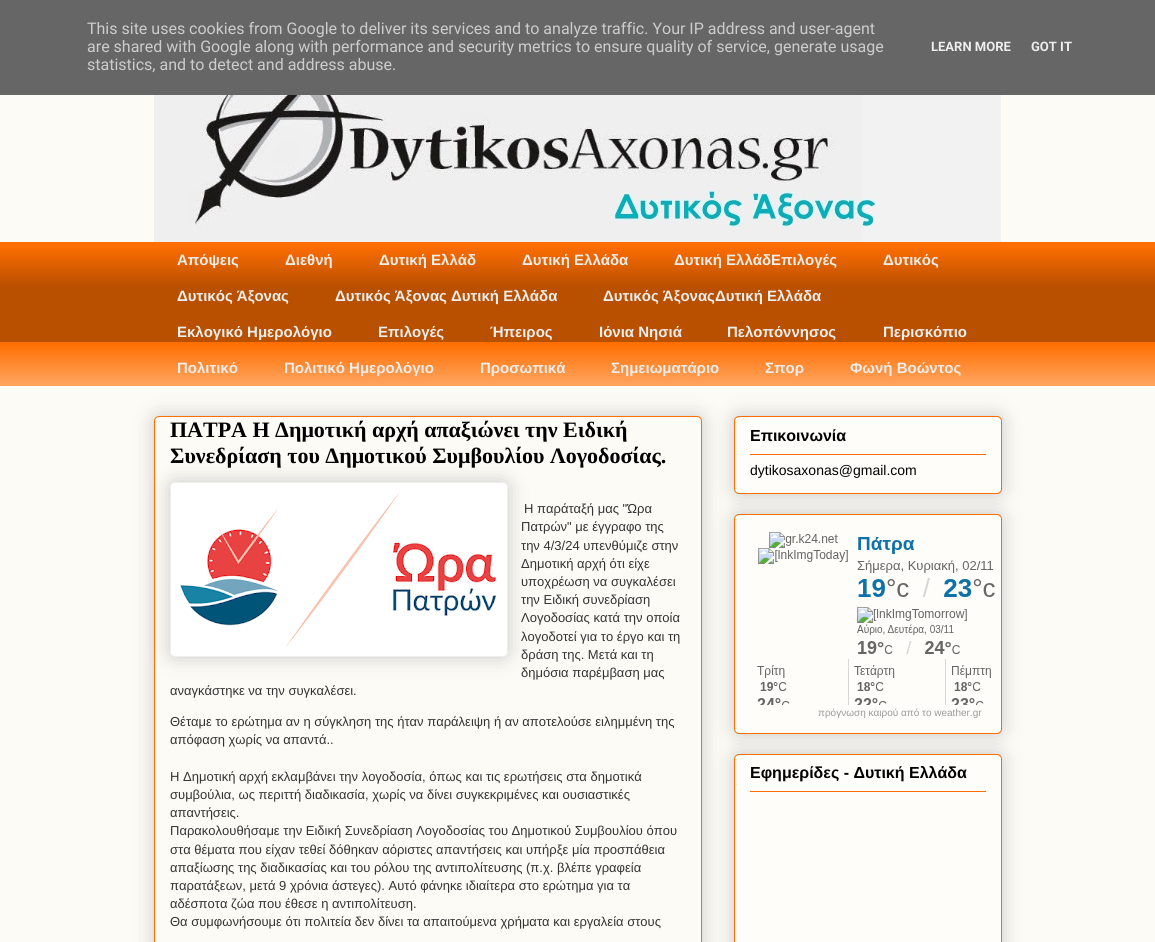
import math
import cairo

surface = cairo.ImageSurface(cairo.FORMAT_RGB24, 1155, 942)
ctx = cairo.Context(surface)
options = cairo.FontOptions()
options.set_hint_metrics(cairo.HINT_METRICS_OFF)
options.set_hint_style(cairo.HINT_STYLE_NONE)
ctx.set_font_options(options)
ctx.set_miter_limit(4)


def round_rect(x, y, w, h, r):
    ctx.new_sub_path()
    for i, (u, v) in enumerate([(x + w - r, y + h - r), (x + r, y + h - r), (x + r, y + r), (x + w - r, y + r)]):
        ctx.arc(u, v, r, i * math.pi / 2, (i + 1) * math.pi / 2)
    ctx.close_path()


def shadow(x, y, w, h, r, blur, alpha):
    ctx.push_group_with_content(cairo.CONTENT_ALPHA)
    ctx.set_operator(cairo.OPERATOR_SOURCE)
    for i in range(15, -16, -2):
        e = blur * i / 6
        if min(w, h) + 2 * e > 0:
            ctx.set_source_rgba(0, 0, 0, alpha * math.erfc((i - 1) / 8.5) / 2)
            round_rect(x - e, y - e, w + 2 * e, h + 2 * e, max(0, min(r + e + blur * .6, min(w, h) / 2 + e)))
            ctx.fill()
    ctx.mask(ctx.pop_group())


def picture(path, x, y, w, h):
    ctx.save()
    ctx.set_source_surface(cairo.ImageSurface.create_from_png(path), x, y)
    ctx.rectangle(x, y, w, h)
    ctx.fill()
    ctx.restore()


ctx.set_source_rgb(0.988, 0.984, 0.961)
ctx.paint()
ctx.set_source_rgb(0.4, 0.4, 0.4)
ctx.rectangle(0, 0, 1155, 95)
ctx.fill()
ctx.select_font_face("Roboto")
ctx.set_font_size(16)
ctx.set_source_rgb(0.8, 0.8, 0.8)
ctx.move_to(87, 34)
ctx.show_text("This site uses cookies from Google to deliver its services and to analyze traffic. Your IP address and user-agent")
ctx.move_to(87, 52)
ctx.show_text("are shared with Google along with performance and security metrics to ensure quality of service, generate usage")
ctx.move_to(87, 70)
ctx.show_text("statistics, and to detect and address abuse.")
ctx.select_font_face("Roboto", cairo.FONT_SLANT_NORMAL, cairo.FONT_WEIGHT_BOLD)
ctx.set_font_size(13)
ctx.set_source_rgb(0.933, 0.933, 0.933)
ctx.move_to(931, 51)
ctx.show_text("LEARN MORE")
ctx.move_to(1031, 51)
ctx.show_text("GOT IT")
picture("img1.png", 154, 95, 847, 147)
ctx.set_source_rgb(1, 0.431, 0)
ctx.rectangle(0, 242, 1155, 144)
ctx.fill()
picture("img2.png", 0, 248, 1155, 138)
ctx.select_font_face("Liberation Sans", cairo.FONT_SLANT_NORMAL, cairo.FONT_WEIGHT_BOLD)
ctx.set_font_size(15)
ctx.set_source_rgb(0.933, 0.933, 0.933)
ctx.move_to(177, 265)
ctx.show_text("Απόψεις")
ctx.move_to(285, 265)
ctx.show_text("Διεθνή")
ctx.move_to(379, 265)
ctx.show_text("Δυτική Ελλάδ")
ctx.move_to(522, 265)
ctx.show_text("Δυτική Ελλάδα")
ctx.move_to(674, 265)
ctx.show_text("Δυτική ΕλλάδΕπιλογές")
ctx.move_to(883, 265)
ctx.show_text("Δυτικός")
ctx.move_to(177, 301)
ctx.show_text("Δυτικός Άξονας")
ctx.move_to(335, 301)
ctx.show_text("Δυτικός Άξονας Δυτική Ελλάδα")
ctx.move_to(603, 301)
ctx.show_text("Δυτικός ΆξοναςΔυτική Ελλάδα")
ctx.move_to(177, 337)
ctx.show_text("Εκλογικό Ημερολόγιο")
ctx.move_to(378, 337)
ctx.show_text("Επιλογές")
ctx.move_to(490, 337)
ctx.show_text("Ήπειρος")
ctx.move_to(599, 337)
ctx.show_text("Ιόνια Νησιά")
ctx.move_to(727, 337)
ctx.show_text("Πελοπόννησος")
ctx.move_to(883, 337)
ctx.show_text("Περισκόπιο")
ctx.move_to(177, 373)
ctx.show_text("Πολιτικό")
ctx.move_to(284, 373)
ctx.show_text("Πολιτικό Ημερολόγιο")
ctx.move_to(480, 373)
ctx.show_text("Προσωπικά")
ctx.move_to(611, 373)
ctx.show_text("Σημειωματάριο")
ctx.move_to(765, 373)
ctx.show_text("Σπορ")
ctx.move_to(850, 373)
ctx.show_text("Φωνή Βοώντος")
ctx.save()
ctx.set_fill_rule(cairo.FILL_RULE_EVEN_ODD)
ctx.new_path()
ctx.move_to(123, 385)
ctx.line_to(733, 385)
ctx.line_to(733, 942)
ctx.line_to(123, 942)
ctx.close_path()
ctx.move_to(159, 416)
ctx.line_to(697, 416)
ctx.curve_to(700, 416, 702, 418, 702, 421)
ctx.line_to(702, 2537)
ctx.curve_to(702, 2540, 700, 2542, 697, 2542)
ctx.line_to(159, 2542)
ctx.curve_to(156, 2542, 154, 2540, 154, 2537)
ctx.line_to(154, 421)
ctx.curve_to(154, 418, 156, 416, 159, 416)
ctx.close_path()
ctx.clip()
ctx.set_source_rgb(0, 0, 0)
shadow(154, 416, 548, 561, 5, 10, 0.2)
ctx.restore()
round_rect(154.5, 416.5, 547, 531, 4.5)
ctx.set_source_rgb(1, 0.431, 0)
ctx.set_line_width(1)
ctx.stroke()
ctx.select_font_face("Liberation Serif", cairo.FONT_SLANT_NORMAL, cairo.FONT_WEIGHT_BOLD)
ctx.set_font_size(22)
ctx.set_source_rgb(0, 0, 0)
ctx.move_to(170, 437)
ctx.show_text("ΠΑΤΡΑ Η Δημοτική αρχή απαξιώνει την Ειδική")
ctx.move_to(170, 463)
ctx.show_text("Συνεδρίαση του Δημοτικού Συμβουλίου Λογοδοσίας.")
ctx.set_source_rgb(0, 0, 0)
shadow(170, 482, 338, 175, 5, 10, 0.2)
ctx.set_source_rgb(1, 1, 1)
round_rect(170.5, 482.5, 337, 174, 4.5)
ctx.fill_preserve()
ctx.set_source_rgb(0.933, 0.933, 0.933)
ctx.stroke()
picture("img3.png", 180, 492, 316, 155)
ctx.select_font_face("Liberation Sans")
ctx.set_font_size(13)
ctx.set_source_rgb(0.2, 0.2, 0.2)
ctx.move_to(524, 513)
ctx.show_text("Η παράταξή μας \"Ώρα")
ctx.move_to(521, 531)
ctx.show_text("Πατρών\" με έγγραφο της")
ctx.move_to(521, 550)
ctx.show_text("την 4/3/24 υπενθύμιζε στην")
ctx.move_to(521, 568)
ctx.show_text("Δημοτική αρχή ότι είχε")
ctx.move_to(521, 586)
ctx.show_text("υποχρέωση να συγκαλέσει")
ctx.move_to(521, 604)
ctx.show_text("την Ειδική συνεδρίαση")
ctx.move_to(521, 622)
ctx.show_text("Λογοδοσίας κατά την οποία")
ctx.move_to(521, 641)
ctx.show_text("λογοδοτεί για το έργο και τη")
ctx.move_to(521, 659)
ctx.show_text("δράση της. Μετά και τη")
ctx.move_to(521, 677)
ctx.show_text("δημόσια παρέμβαση μας")
ctx.move_to(170, 695)
ctx.show_text("αναγκάστηκε να την συγκαλέσει.")
ctx.move_to(170, 726)
ctx.show_text("Θέταμε το ερώτημα αν η σύγκληση της ήταν παράλειψη ή αν αποτελούσε ειλημμένη της")
ctx.move_to(170, 744)
ctx.show_text("απόφαση χωρίς να απαντά..")
ctx.move_to(170, 781)
ctx.show_text("Η Δημοτική αρχή εκλαμβάνει την λογοδοσία, όπως και τις ερωτήσεις στα δημοτικά")
ctx.move_to(170, 799)
ctx.show_text("συμβούλια, ως περιττή διαδικασία, χωρίς να δίνει συγκεκριμένες και ουσιαστικές")
ctx.move_to(170, 817)
ctx.show_text("απαντήσεις.")
ctx.move_to(170, 835)
ctx.show_text("Παρακολουθήσαμε την Ειδική Συνεδρίαση Λογοδοσίας του Δημοτικού Συμβουλίου όπου")
ctx.move_to(170, 854)
ctx.show_text("στα θέματα που είχαν τεθεί δόθηκαν αόριστες απαντήσεις και υπήρξε μία προσπάθεια")
ctx.move_to(170, 872)
ctx.show_text("απαξίωσης της διαδικασίας και του ρόλου της αντιπολίτευσης (π.χ. βλέπε γραφεία")
ctx.move_to(170, 890)
ctx.show_text("παρατάξεων, μετά 9 χρόνια άστεγες). Αυτό φάνηκε ιδιαίτερα στο ερώτημα για τα")
ctx.move_to(170, 908)
ctx.show_text("αδέσποτα ζώα που έθεσε η αντιπολίτευση.")
ctx.move_to(170, 926)
ctx.show_text("Θα συμφωνήσουμε ότι πολιτεία δεν δίνει τα απαιτούμενα χρήματα και εργαλεία στους")
ctx.set_source_rgb(0, 0, 0)
shadow(734, 416, 268, 78, 5, 10, 0.2)
ctx.set_source_rgb(0.996, 0.992, 0.98)
round_rect(734.5, 416.5, 267, 77, 4.5)
ctx.fill_preserve()
ctx.set_source_rgb(1, 0.431, 0)
ctx.stroke()
ctx.select_font_face("Liberation Sans", cairo.FONT_SLANT_NORMAL, cairo.FONT_WEIGHT_BOLD)
ctx.set_font_size(16)
ctx.set_source_rgb(0, 0, 0)
ctx.move_to(750, 441)
ctx.show_text("Επικοινωνία")
ctx.set_source_rgb(1, 0.431, 0)
ctx.rectangle(750, 454, 236, 1)
ctx.fill()
ctx.select_font_face("Liberation Sans")
ctx.set_font_size(14)
ctx.set_source_rgb(0, 0, 0)
ctx.move_to(750, 475)
ctx.show_text("dytikosaxonas@gmail.com")
ctx.set_source_rgb(0, 0, 0)
shadow(734, 514, 268, 220, 5, 10, 0.2)
ctx.set_source_rgb(0.996, 0.992, 0.98)
round_rect(734.5, 514.5, 267, 219, 4.5)
ctx.fill_preserve()
ctx.set_source_rgb(1, 0.431, 0)
ctx.stroke()
picture("img4.png", 757, 532, 238, 173)
ctx.set_font_size(10)
ctx.set_source_rgb(0.6, 0.6, 0.6)
ctx.move_to(818, 716)
ctx.show_text("πρόγνωση καιρού από το weather.gr")
ctx.set_source_rgb(0, 0, 0)
shadow(734, 754, 268, 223, 5, 10, 0.2)
ctx.set_source_rgb(0.996, 0.992, 0.98)
round_rect(734.5, 754.5, 267, 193, 4.5)
ctx.fill_preserve()
ctx.set_source_rgb(1, 0.431, 0)
ctx.stroke()
ctx.select_font_face("Liberation Sans", cairo.FONT_SLANT_NORMAL, cairo.FONT_WEIGHT_BOLD)
ctx.set_font_size(16)
ctx.set_source_rgb(0, 0, 0)
ctx.move_to(750, 778)
ctx.show_text("Εφημερίδες - Δυτική Ελλάδα")
ctx.set_source_rgb(1, 0.431, 0)
ctx.rectangle(750, 791, 236, 1)
ctx.fill()
surface.write_to_png("page.png")
